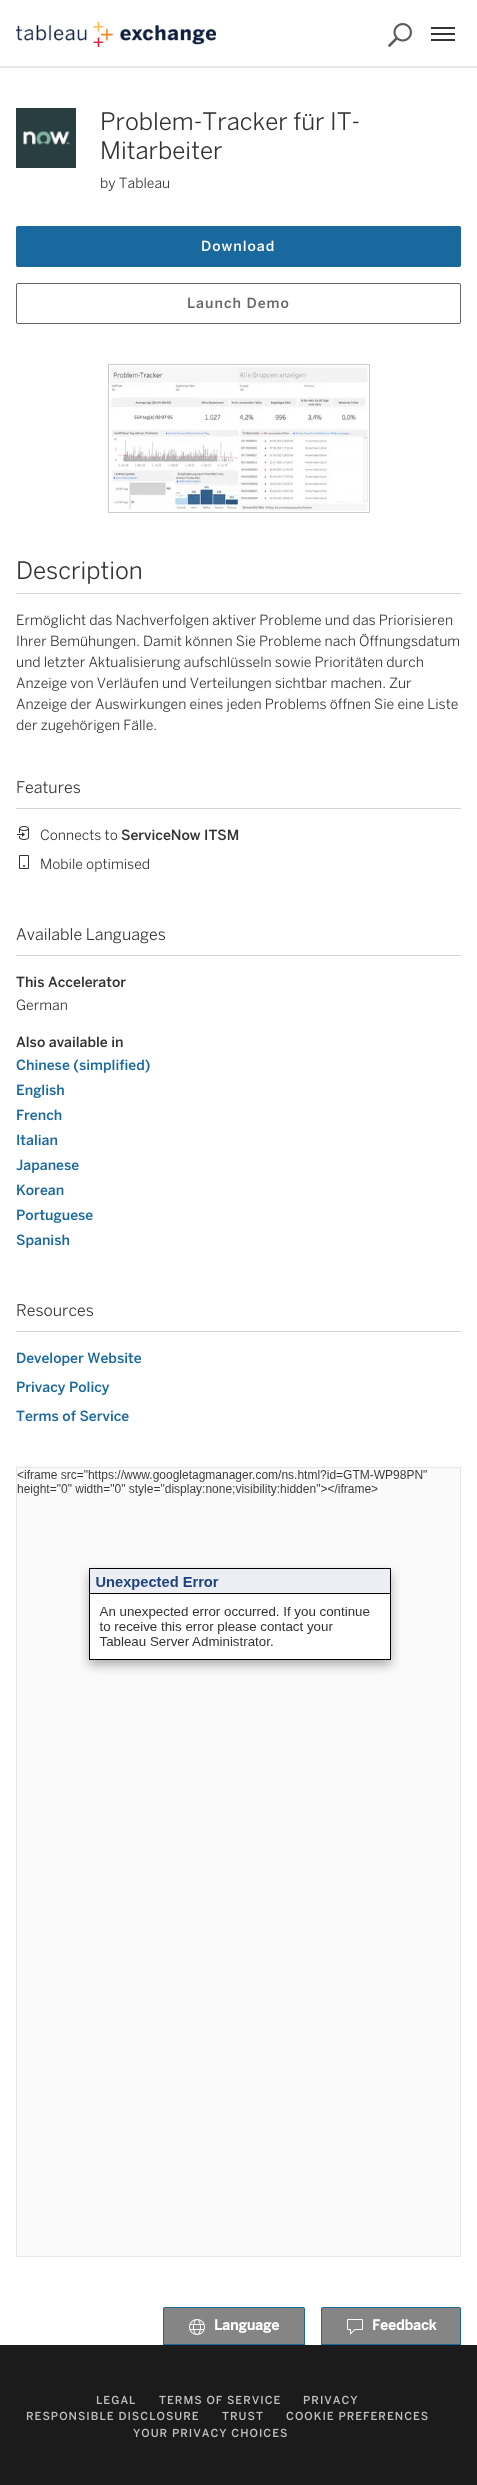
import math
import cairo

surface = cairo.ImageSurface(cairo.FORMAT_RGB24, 477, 2485)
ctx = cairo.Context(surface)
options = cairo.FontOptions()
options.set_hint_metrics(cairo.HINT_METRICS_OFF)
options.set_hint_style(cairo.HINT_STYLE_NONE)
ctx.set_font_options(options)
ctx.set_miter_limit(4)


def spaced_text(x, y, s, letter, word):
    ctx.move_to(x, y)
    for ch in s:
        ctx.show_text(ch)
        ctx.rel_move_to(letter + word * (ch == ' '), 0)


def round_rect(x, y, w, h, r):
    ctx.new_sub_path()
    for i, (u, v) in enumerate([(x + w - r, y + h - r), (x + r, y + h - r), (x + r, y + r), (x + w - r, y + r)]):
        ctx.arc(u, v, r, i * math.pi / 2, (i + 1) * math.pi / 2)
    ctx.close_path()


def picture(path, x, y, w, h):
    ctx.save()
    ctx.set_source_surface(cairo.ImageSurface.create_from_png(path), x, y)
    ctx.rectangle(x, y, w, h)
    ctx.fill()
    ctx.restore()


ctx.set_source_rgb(1, 1, 1)
ctx.paint()
ctx.set_source_rgb(0.902, 0.902, 0.902)
ctx.rectangle(0, 66, 477, 2)
ctx.fill()
picture("img1.png", 16, 22, 200, 25)
picture("img2.png", 388, 23, 24, 24)
ctx.set_source_rgb(0.2, 0.2, 0.2)
ctx.rectangle(431, 33, 24, 2)
ctx.fill()
ctx.rectangle(431, 27, 24, 2)
ctx.fill()
ctx.rectangle(431, 39, 24, 2)
ctx.fill()
picture("img3.png", 16, 108, 60, 60)
ctx.select_font_face("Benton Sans")
ctx.set_font_size(24)
ctx.move_to(100, 130)
ctx.show_text("Problem-Tracker für IT-")
ctx.move_to(100, 159)
ctx.show_text("Mitarbeiter")
ctx.set_font_size(14)
ctx.move_to(100, 188)
ctx.show_text("by Tableau")
ctx.set_source_rgb(0.102, 0.412, 0.62)
round_rect(16.5, 226.5, 444, 40, 1.5)
ctx.fill_preserve()
ctx.set_line_width(1)
ctx.stroke()
ctx.select_font_face("Benton Sans Medium")
ctx.set_source_rgb(1, 1, 1)
spaced_text(201, 251, "Download", 1, 0)
round_rect(16.5, 283.5, 444, 40, 1.5)
ctx.set_source_rgb(0.4, 0.4, 0.4)
ctx.stroke()
spaced_text(187, 308, "Launch Demo", 1, 0)
round_rect(108.5, 364.5, 261, 148, 0.5)
ctx.set_source_rgb(0.796, 0.796, 0.796)
ctx.stroke()
picture("img4.png", 110, 366, 259, 145)
ctx.set_source_rgb(0.831, 0.831, 0.831)
ctx.rectangle(16, 593, 445, 1)
ctx.fill()
ctx.select_font_face("Benton Sans")
ctx.set_font_size(24)
ctx.set_source_rgb(0.2, 0.2, 0.2)
ctx.move_to(16, 579)
ctx.show_text("Description")
ctx.set_font_size(14)
ctx.move_to(16, 625)
ctx.show_text("Ermöglicht das Nachverfolgen aktiver Probleme und das Priorisieren")
ctx.move_to(16, 646)
ctx.show_text("Ihrer Bemühungen. Damit können Sie Probleme nach Öffnungsdatum")
ctx.move_to(16, 667)
ctx.show_text("und letzter Aktualisierung aufschlüsseln sowie Prioritäten durch")
ctx.move_to(16, 688)
ctx.show_text("Anzeige von Verläufen und Verteilungen sichtbar machen. Zur")
ctx.move_to(16, 709)
ctx.show_text("Anzeige der Auswirkungen eines jeden Problems öffnen Sie eine Liste")
ctx.move_to(16, 730)
ctx.show_text("der zugehörigen Fälle.")
ctx.set_source_rgb(0.831, 0.831, 0.831)
ctx.rectangle(16, 808, 445, 1)
ctx.fill()
ctx.set_font_size(16)
ctx.set_source_rgb(0.2, 0.2, 0.2)
ctx.move_to(16, 793)
ctx.show_text("Features")
picture("img5.png", 17, 826, 12, 14)
ctx.set_font_size(14)
ctx.move_to(40, 840)
ctx.show_text("Connects to")
ctx.select_font_face("Benton Sans Medium")
ctx.move_to(121, 840)
ctx.show_text("ServiceNow ITSM")
picture("img6.png", 19, 855, 10, 14)
ctx.select_font_face("Benton Sans")
ctx.move_to(40, 869)
ctx.show_text("Mobile optimised")
ctx.set_source_rgb(0.831, 0.831, 0.831)
ctx.rectangle(16, 955, 445, 1)
ctx.fill()
ctx.set_font_size(16)
ctx.set_source_rgb(0.2, 0.2, 0.2)
ctx.move_to(16, 940)
ctx.show_text("Available Languages")
ctx.select_font_face("Benton Sans Medium")
ctx.set_font_size(14)
ctx.move_to(16, 987)
ctx.show_text("This Accelerator")
ctx.select_font_face("Benton Sans")
ctx.move_to(16, 1010)
ctx.show_text("German")
ctx.select_font_face("Benton Sans Medium")
ctx.move_to(16, 1047)
ctx.show_text("Also available in")
ctx.set_source_rgb(0.102, 0.412, 0.62)
ctx.move_to(16, 1070)
ctx.show_text("Chinese (simplified)")
ctx.move_to(16, 1095)
ctx.show_text("English")
ctx.move_to(16, 1120)
ctx.show_text("French")
ctx.move_to(16, 1145)
ctx.show_text("Italian")
ctx.move_to(16, 1170)
ctx.show_text("Japanese")
ctx.move_to(16, 1195)
ctx.show_text("Korean")
ctx.move_to(16, 1220)
ctx.show_text("Portuguese")
ctx.move_to(16, 1245)
ctx.show_text("Spanish")
ctx.set_source_rgb(0.831, 0.831, 0.831)
ctx.rectangle(16, 1331, 445, 1)
ctx.fill()
ctx.select_font_face("Benton Sans")
ctx.set_font_size(16)
ctx.set_source_rgb(0.2, 0.2, 0.2)
ctx.move_to(16, 1316)
ctx.show_text("Resources")
ctx.select_font_face("Benton Sans Medium")
ctx.set_font_size(14)
ctx.set_source_rgb(0.102, 0.412, 0.62)
ctx.move_to(16, 1363)
ctx.show_text("Developer Website")
ctx.move_to(16, 1392)
ctx.show_text("Privacy Policy")
ctx.move_to(16, 1421)
ctx.show_text("Terms of Service")
ctx.rectangle(16.5, 1467.5, 444, 789)
ctx.set_source_rgb(0.902, 0.902, 0.902)
ctx.stroke()
picture("img7.png", 17, 1468, 443, 788)
ctx.set_source_rgb(0.522, 0.522, 0.522)
ctx.new_path()
ctx.move_to(165, 2307.5)
ctx.line_to(303, 2307.5)
ctx.curve_to(304, 2307.5, 304.5, 2308, 304.5, 2309)
ctx.line_to(304.5, 2344.5)
ctx.line_to(163.5, 2344.5)
ctx.line_to(163.5, 2309)
ctx.curve_to(163.5, 2308, 164, 2307.5, 165, 2307.5)
ctx.close_path()
ctx.fill_preserve()
ctx.set_source_rgb(0.102, 0.412, 0.62)
ctx.stroke()
picture("img8.png", 189, 2319, 16, 16)
ctx.select_font_face("Benton Sans", cairo.FONT_SLANT_NORMAL, cairo.FONT_WEIGHT_BOLD)
ctx.set_source_rgb(1, 1, 1)
ctx.move_to(214, 2330)
ctx.show_text("Language")
ctx.set_source_rgb(0.522, 0.522, 0.522)
ctx.new_path()
ctx.move_to(323, 2307.5)
ctx.line_to(459, 2307.5)
ctx.curve_to(460, 2307.5, 460.5, 2308, 460.5, 2309)
ctx.line_to(460.5, 2344.5)
ctx.line_to(321.5, 2344.5)
ctx.line_to(321.5, 2309)
ctx.curve_to(321.5, 2308, 322, 2307.5, 323, 2307.5)
ctx.close_path()
ctx.fill_preserve()
ctx.set_source_rgb(0.102, 0.412, 0.62)
ctx.stroke()
picture("img9.png", 347, 2319, 16, 16)
ctx.set_source_rgb(1, 1, 1)
ctx.move_to(372, 2330)
ctx.show_text("Feedback")
ctx.set_source_rgb(0.106, 0.106, 0.106)
ctx.rectangle(0, 2345, 477, 140)
ctx.fill()
ctx.select_font_face("Benton Sans Medium")
ctx.set_font_size(11)
ctx.set_source_rgb(0.749, 0.749, 0.749)
spaced_text(96, 2404, "LEGAL", 1, 0)
spaced_text(159, 2404, "TERMS OF SERVICE", 1, 0)
spaced_text(303, 2404, "PRIVACY", 1, 0)
spaced_text(26, 2420, "RESPONSIBLE DISCLOSURE", 1, 0)
spaced_text(222, 2420, "TRUST", 1, 0)
spaced_text(286, 2420, "COOKIE PREFERENCES", 1, 0)
spaced_text(133, 2437, "YOUR PRIVACY CHOICES", 1, 0)
surface.write_to_png("page.png")
